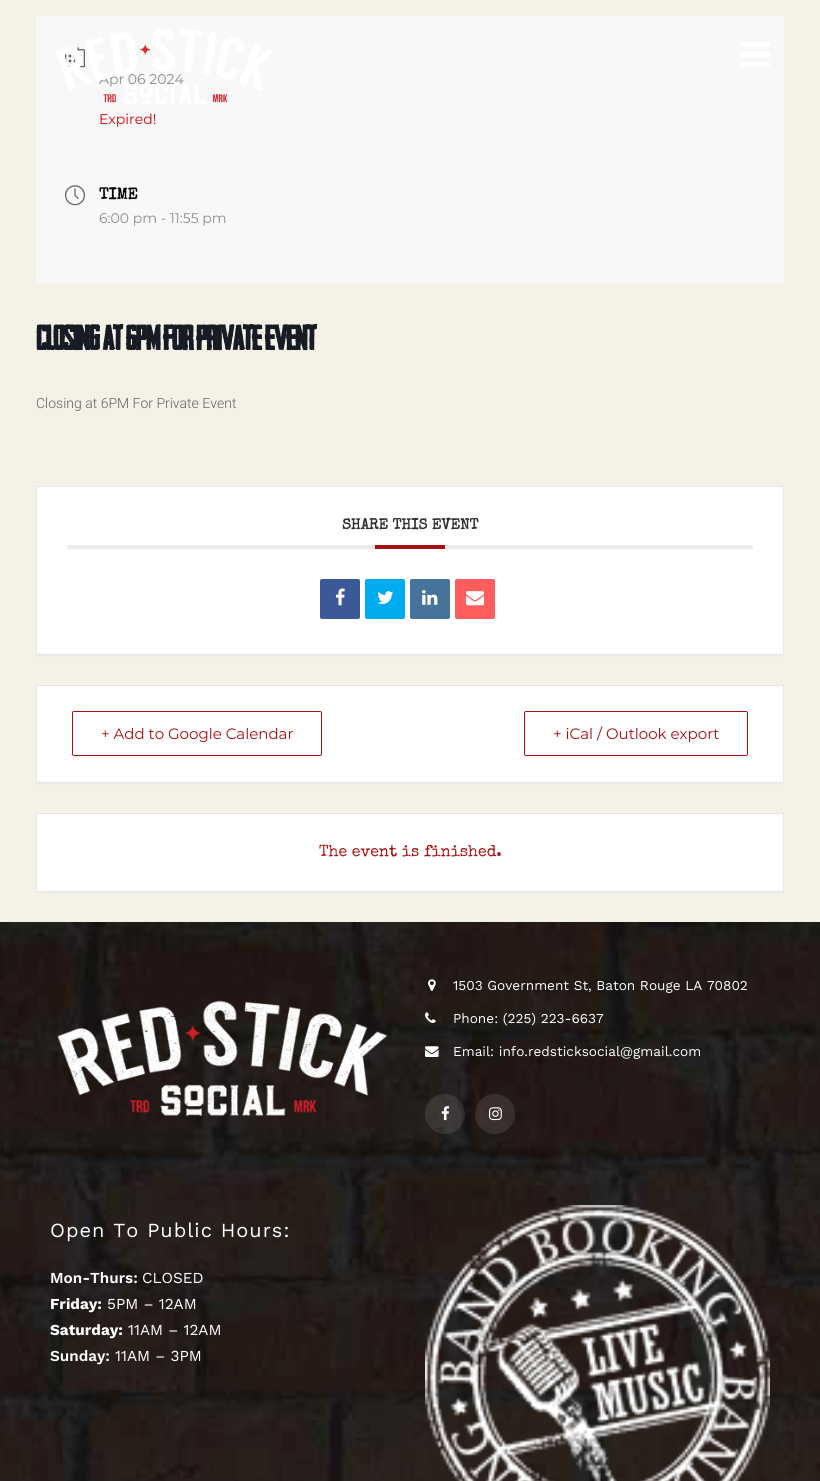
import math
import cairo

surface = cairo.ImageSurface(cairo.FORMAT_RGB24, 820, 1481)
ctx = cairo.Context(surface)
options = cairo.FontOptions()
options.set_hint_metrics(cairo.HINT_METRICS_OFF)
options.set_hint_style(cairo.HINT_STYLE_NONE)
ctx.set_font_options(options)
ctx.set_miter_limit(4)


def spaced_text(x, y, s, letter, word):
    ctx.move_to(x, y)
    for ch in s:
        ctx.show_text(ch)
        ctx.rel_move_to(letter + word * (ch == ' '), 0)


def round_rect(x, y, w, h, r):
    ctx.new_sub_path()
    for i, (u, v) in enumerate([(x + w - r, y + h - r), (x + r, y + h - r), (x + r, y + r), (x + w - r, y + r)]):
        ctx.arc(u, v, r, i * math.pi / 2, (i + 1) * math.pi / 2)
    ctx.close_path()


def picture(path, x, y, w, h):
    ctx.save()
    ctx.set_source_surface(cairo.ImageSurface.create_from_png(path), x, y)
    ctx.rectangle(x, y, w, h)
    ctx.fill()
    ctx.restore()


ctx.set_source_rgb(0.957, 0.945, 0.906)
ctx.paint()
ctx.set_source_rgb(0.969, 0.969, 0.969)
ctx.rectangle(36, 16, 748, 267)
ctx.fill()
picture("img3.png", 65, 47, 20, 21)
ctx.select_font_face("Montserrat")
ctx.set_font_size(14)
ctx.set_source_rgb(0.553, 0.553, 0.553)
ctx.move_to(99, 84)
ctx.show_text("Apr 06 2024")
picture("img1.png", 55, 29, 219, 75)
picture("img2.png", 740, 42, 30, 25)
ctx.set_source_rgb(0.847, 0, 0.047)
ctx.move_to(99, 124)
ctx.show_text("Expired!")
picture("img4.png", 65, 185, 20, 21)
ctx.select_font_face("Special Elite", cairo.FONT_SLANT_NORMAL, cairo.FONT_WEIGHT_BOLD)
ctx.set_font_size(16)
ctx.set_source_rgb(0, 0, 0)
ctx.move_to(99, 199)
ctx.show_text("TIME")
ctx.select_font_face("Montserrat")
ctx.set_font_size(14)
ctx.set_source_rgb(0.553, 0.553, 0.553)
ctx.move_to(99, 223)
ctx.show_text("6:00 pm - 11:55 pm")
ctx.select_font_face("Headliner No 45", cairo.FONT_SLANT_NORMAL, cairo.FONT_WEIGHT_BOLD)
ctx.set_font_size(33)
ctx.set_source_rgb(0.09, 0.11, 0.141)
spaced_text(36, 350, "Closing at 6PM For Private Event", -1, 0)
ctx.select_font_face("Roboto Light")
ctx.set_font_size(14)
ctx.set_source_rgb(0.38, 0.38, 0.38)
ctx.move_to(36, 408)
ctx.show_text("Closing at 6PM For Private Event")
ctx.set_source_rgb(0.941, 0.929, 0.89)
ctx.rectangle(36, 655, 748, 2)
ctx.fill()
ctx.set_source_rgb(1, 1, 1)
ctx.rectangle(36.5, 486.5, 747, 168)
ctx.fill_preserve()
ctx.set_source_rgb(0.902, 0.902, 0.902)
ctx.set_line_width(1)
ctx.stroke()
ctx.set_source_rgb(0.922, 0.922, 0.922)
ctx.rectangle(67, 545, 686, 4)
ctx.fill()
ctx.select_font_face("Special Elite", cairo.FONT_SLANT_NORMAL, cairo.FONT_WEIGHT_BOLD)
ctx.set_font_size(15)
ctx.set_source_rgb(0.192, 0.192, 0.192)
ctx.move_to(342, 529)
ctx.show_text("SHARE THIS EVENT")
ctx.set_source_rgb(0.659, 0.063, 0.063)
ctx.rectangle(375, 545, 70, 4)
ctx.fill()
ctx.set_source_rgb(0.231, 0.349, 0.588)
round_rect(320, 579, 40, 40, 2)
ctx.fill()
picture("img5.png", 335, 588, 10, 18)
ctx.set_source_rgb(0, 0.675, 0.933)
round_rect(365, 579, 40, 40, 2)
ctx.fill()
picture("img6.png", 377, 591, 17, 13)
ctx.set_source_rgb(0.271, 0.451, 0.6)
round_rect(410, 579, 40, 40, 2)
ctx.fill()
picture("img7.png", 422, 590, 16, 15)
ctx.set_source_rgb(1, 0.365, 0.369)
round_rect(455, 579, 40, 40, 2)
ctx.fill()
picture("img8.png", 466, 591, 18, 15)
ctx.set_source_rgb(0.941, 0.929, 0.89)
ctx.rectangle(36, 783, 748, 2)
ctx.fill()
ctx.set_source_rgb(1, 1, 1)
ctx.rectangle(36.5, 685.5, 747, 97)
ctx.fill_preserve()
ctx.set_source_rgb(0.902, 0.902, 0.902)
ctx.stroke()
ctx.set_source_rgb(0.969, 0.969, 0.969)
ctx.new_path()
ctx.move_to(72, 754)
ctx.curve_to(72, 756, 72, 758, 74, 758)
ctx.line_to(320, 758)
ctx.curve_to(322, 758, 322, 756, 322, 754)
ctx.curve_to(322, 755, 321, 756, 320, 756)
ctx.line_to(74, 756)
ctx.curve_to(73, 756, 72, 755, 72, 754)
ctx.close_path()
ctx.fill()
round_rect(72.5, 711.5, 249, 44, 1.5)
ctx.set_source_rgb(0.659, 0.063, 0.063)
ctx.stroke()
ctx.select_font_face("Montserrat")
ctx.move_to(101, 739)
ctx.show_text("+ Add to Google Calendar")
ctx.set_source_rgb(0.969, 0.969, 0.969)
ctx.new_path()
ctx.move_to(524, 754)
ctx.line_to(524, 756)
ctx.curve_to(524, 757, 525, 758, 526, 758)
ctx.line_to(746, 758)
ctx.curve_to(747, 758, 748, 757, 748, 756)
ctx.line_to(748, 754)
ctx.curve_to(748, 755, 747, 756, 746, 756)
ctx.line_to(526, 756)
ctx.curve_to(525, 756, 524, 755, 524, 754)
ctx.close_path()
ctx.fill()
round_rect(524.5, 711.5, 223, 44, 1.5)
ctx.set_source_rgb(0.659, 0.063, 0.063)
ctx.stroke()
ctx.move_to(553, 739)
ctx.show_text("+ iCal / Outlook export")
ctx.set_source_rgb(0.941, 0.929, 0.89)
ctx.rectangle(36, 892, 748, 2)
ctx.fill()
ctx.set_source_rgb(1, 1, 1)
ctx.rectangle(36.5, 813.5, 747, 78)
ctx.fill_preserve()
ctx.set_source_rgb(0.902, 0.902, 0.902)
ctx.stroke()
ctx.select_font_face("Special Elite")
ctx.set_font_size(16)
ctx.set_source_rgb(0.659, 0.063, 0.063)
ctx.move_to(319, 856)
ctx.show_text("The event is finished.")
picture("img9.png", 0, 922, 820, 559)
picture("img10.png", 57, 1000, 331, 116)
picture("img11.png", 428, 979, 8, 12)
ctx.select_font_face("Work Sans")
ctx.set_font_size(13.6)
ctx.set_source_rgb(1, 1, 1)
ctx.move_to(453, 990)
ctx.show_text("1503 Government St, Baton Rouge LA 70802")
picture("img12.png", 425, 1012, 11, 11)
ctx.move_to(453, 1023)
ctx.show_text("Phone: (225) 223-6637")
picture("img13.png", 425, 1046, 14, 11)
ctx.move_to(453, 1056)
ctx.show_text("Email: info.redsticksocial@gmail.com")
ctx.set_source_rgba(1, 1, 1, 0.1)
ctx.new_path()
ctx.arc(445, 1114, 20, 0, 2 * math.pi)
ctx.fill()
picture("img14.png", 441, 1106, 9, 15)
ctx.arc(495, 1114, 20, 0, 2 * math.pi)
ctx.fill()
picture("img15.png", 489, 1107, 13, 14)
ctx.set_font_size(20)
ctx.set_source_rgb(1, 1, 1)
spaced_text(50, 1237, "Open To Public Hours:", 1, 0)
ctx.select_font_face("Work Sans SemiBold")
ctx.set_font_size(15.25)
ctx.move_to(50, 1283)
ctx.show_text("Mon-Thurs:")
ctx.select_font_face("Work Sans")
ctx.move_to(142, 1283)
ctx.show_text("CLOSED")
ctx.select_font_face("Work Sans", cairo.FONT_SLANT_NORMAL, cairo.FONT_WEIGHT_BOLD)
ctx.move_to(50, 1309)
ctx.show_text("Friday:")
ctx.select_font_face("Work Sans")
ctx.move_to(107, 1309)
ctx.show_text("5PM – 12AM")
ctx.select_font_face("Work Sans", cairo.FONT_SLANT_NORMAL, cairo.FONT_WEIGHT_BOLD)
ctx.move_to(50, 1335)
ctx.show_text("Saturday:")
ctx.select_font_face("Work Sans")
ctx.move_to(128, 1335)
ctx.show_text("11AM – 12AM")
ctx.select_font_face("Work Sans SemiBold")
ctx.move_to(50, 1361)
ctx.show_text("Sunday:")
ctx.select_font_face("Work Sans")
ctx.move_to(115, 1361)
ctx.show_text("11AM – 3PM")
picture("img16.png", 425, 1205, 345, 276)
surface.write_to_png("page.png")
